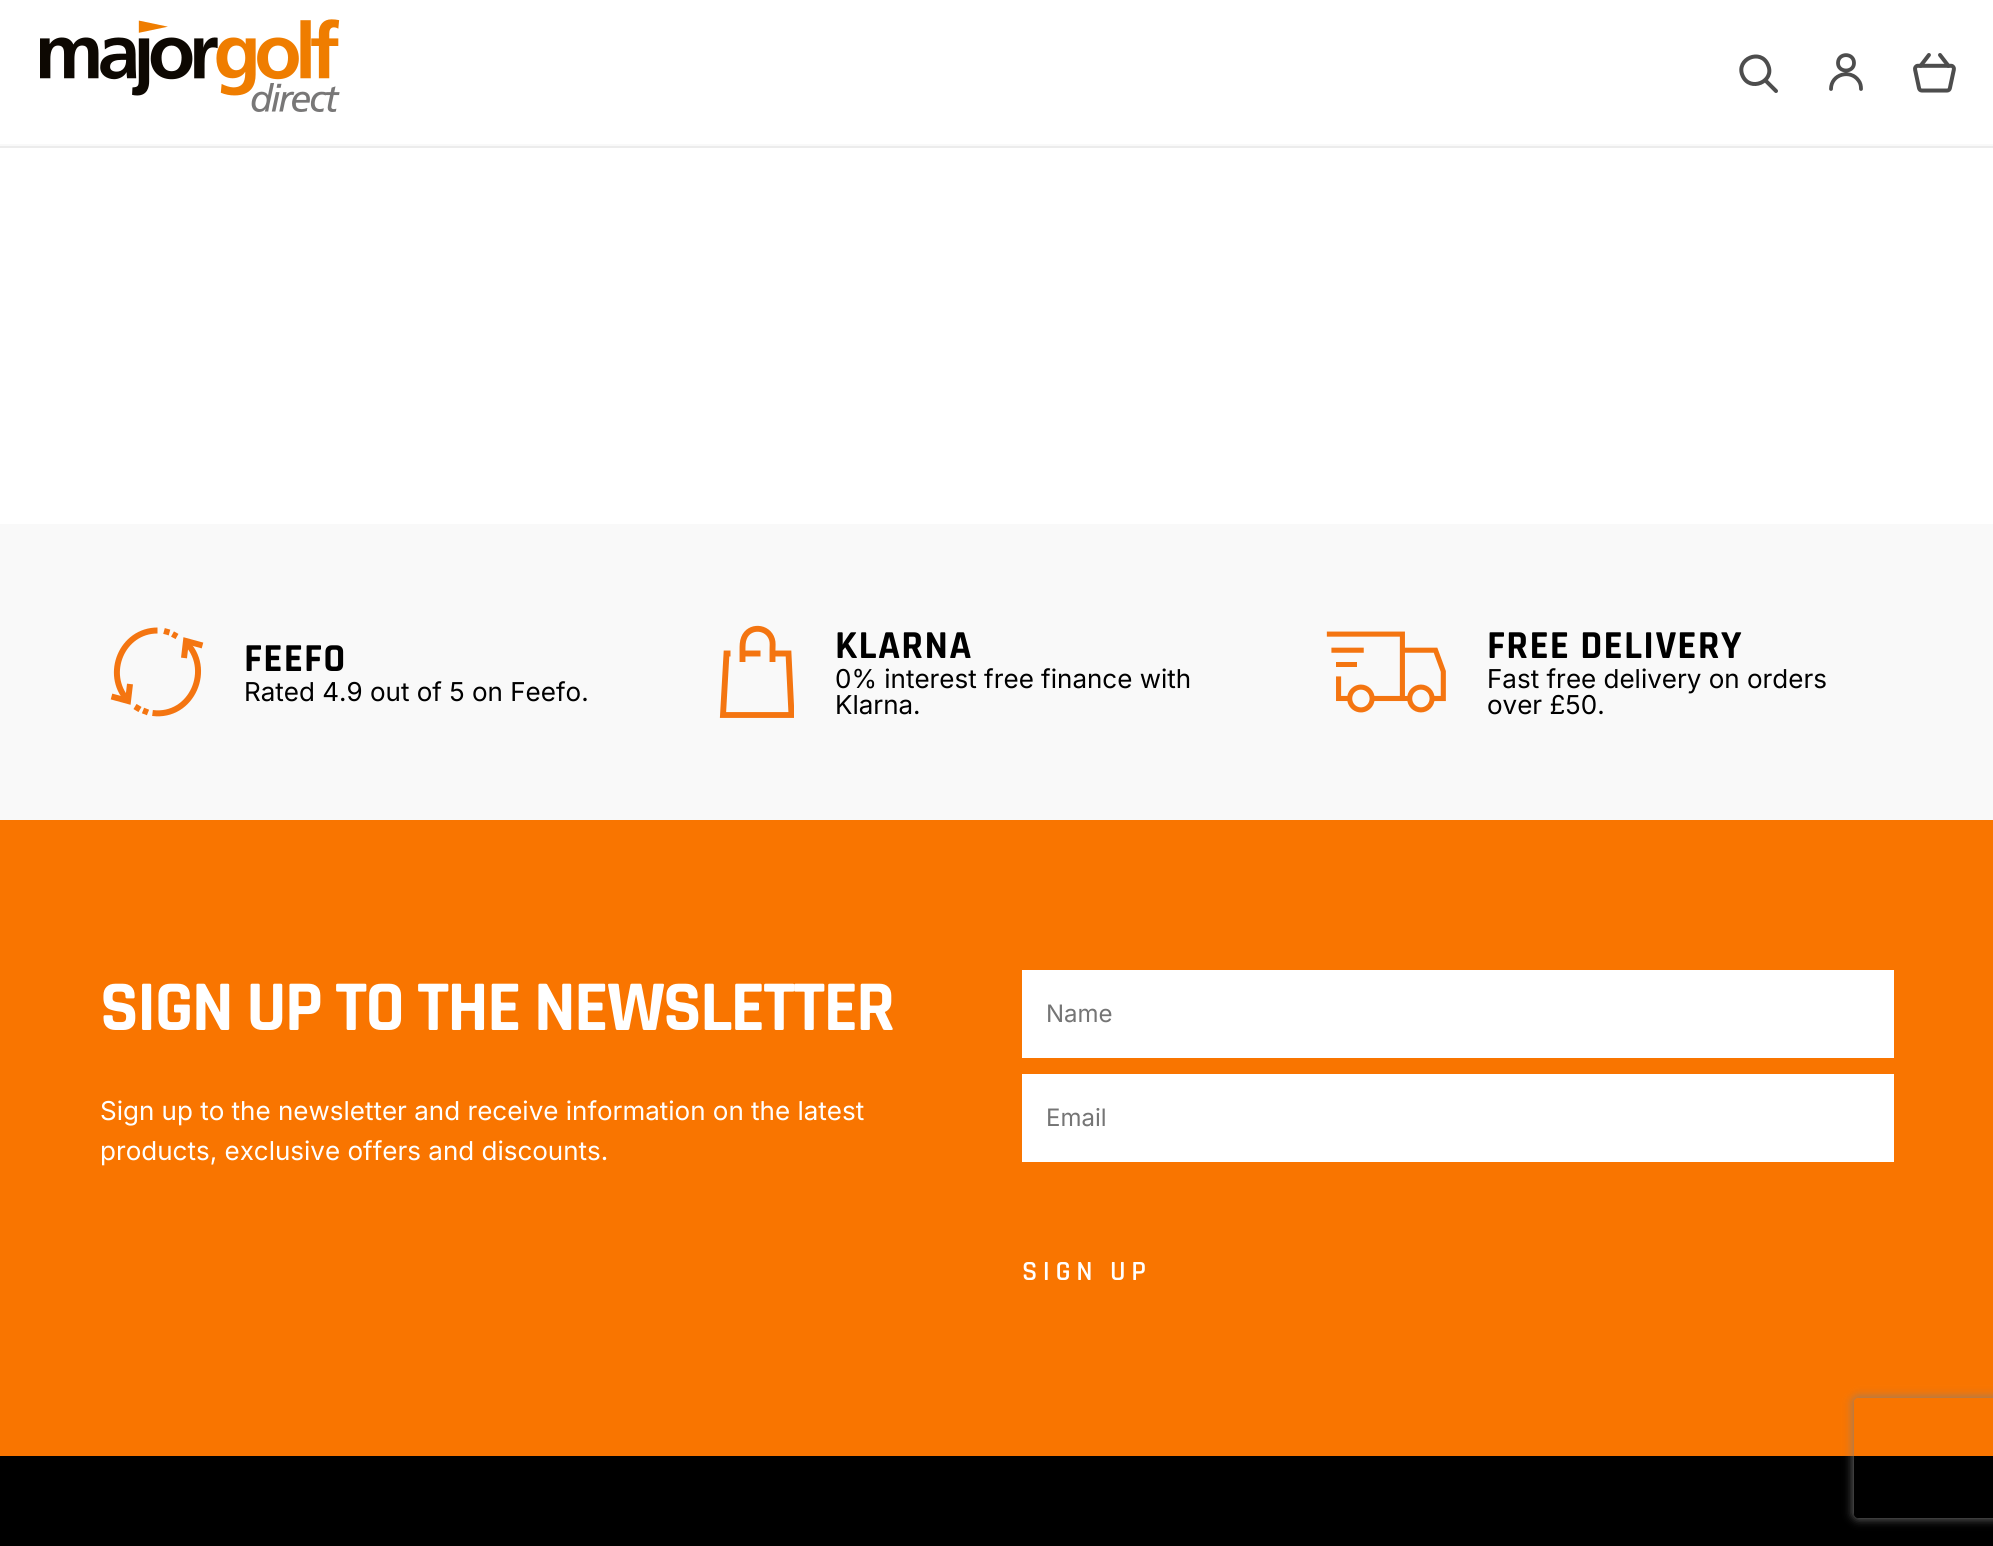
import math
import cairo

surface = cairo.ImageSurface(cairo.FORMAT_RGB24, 1993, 1546)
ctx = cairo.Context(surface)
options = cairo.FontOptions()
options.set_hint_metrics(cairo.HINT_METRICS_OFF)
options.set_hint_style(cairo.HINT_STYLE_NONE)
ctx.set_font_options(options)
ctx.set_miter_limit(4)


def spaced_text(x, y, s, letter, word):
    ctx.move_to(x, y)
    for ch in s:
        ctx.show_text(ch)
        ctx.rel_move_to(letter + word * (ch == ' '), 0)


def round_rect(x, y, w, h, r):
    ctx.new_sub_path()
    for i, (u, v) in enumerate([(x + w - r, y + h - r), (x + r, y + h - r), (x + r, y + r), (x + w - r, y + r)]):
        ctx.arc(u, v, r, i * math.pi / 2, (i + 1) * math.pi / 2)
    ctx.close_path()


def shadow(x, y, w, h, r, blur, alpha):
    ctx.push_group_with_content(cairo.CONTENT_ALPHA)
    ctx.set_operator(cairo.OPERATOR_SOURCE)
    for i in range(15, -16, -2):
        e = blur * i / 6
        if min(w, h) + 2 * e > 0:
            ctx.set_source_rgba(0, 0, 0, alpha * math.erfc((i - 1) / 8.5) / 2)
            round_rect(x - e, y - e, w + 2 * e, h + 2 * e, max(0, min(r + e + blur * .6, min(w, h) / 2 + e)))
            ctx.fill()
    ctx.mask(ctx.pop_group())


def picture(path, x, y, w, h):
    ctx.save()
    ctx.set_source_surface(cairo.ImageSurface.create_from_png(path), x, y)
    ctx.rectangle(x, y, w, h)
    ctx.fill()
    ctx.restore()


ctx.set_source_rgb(1, 1, 1)
ctx.paint()
ctx.set_source_rgb(0.925, 0.925, 0.925)
ctx.rectangle(0, 146, 1993, 2)
ctx.fill()
ctx.set_source_rgb(0.973, 0.973, 0.973)
ctx.rectangle(0, 144, 1993, 2)
ctx.fill()
picture("img1.png", 40, 19, 300, 93)
ctx.new_path()
ctx.move_to(1742.5, 75.5)
ctx.curve_to(1749.5, 92.5, 1775.5, 81.5, 1768, 65)
ctx.curve_to(1761, 48, 1735.5, 59, 1742.5, 75.5)
ctx.close_path()
ctx.move_to(1765, 80)
ctx.line_to(1776, 91)
ctx.set_source_rgb(0.302, 0.302, 0.302)
ctx.set_line_width(4)
ctx.set_line_cap(cairo.LINE_CAP_ROUND)
ctx.set_line_join(cairo.LINE_JOIN_ROUND)
ctx.stroke()
ctx.new_path()
ctx.move_to(1838, 63)
ctx.curve_to(1838, 73, 1854, 73, 1854, 63)
ctx.curve_to(1854, 52.5, 1838, 52.5, 1838, 63)
ctx.close_path()
ctx.move_to(1831, 89)
ctx.curve_to(1831, 74, 1850.5, 69, 1858.5, 80.5)
ctx.curve_to(1860.5, 83, 1861, 86, 1861, 89)
ctx.set_line_width(3.8)
ctx.stroke()
picture("img2.png", 1913, 53, 43, 40)
ctx.set_source_rgb(0.973, 0.973, 0.973)
ctx.rectangle(0, 524, 1993, 296)
ctx.fill()
ctx.new_path()
ctx.move_to(127.5, 700)
ctx.curve_to(104, 674, 122, 630.5, 157.5, 630.5)
ctx.set_source_rgb(0.957, 0.459, 0.067)
ctx.set_line_width(6)
ctx.set_line_cap(cairo.LINE_CAP_BUTT)
ctx.set_line_join(cairo.LINE_JOIN_MITER)
ctx.stroke()
ctx.new_path()
ctx.move_to(140, 709.5)
ctx.line_to(135, 706.5)
ctx.move_to(148, 712.5)
ctx.line_to(143, 710.5)
ctx.stroke()
ctx.new_path()
ctx.move_to(185, 641.5)
ctx.curve_to(213.5, 668, 192, 718, 152.5, 713)
ctx.stroke()
ctx.new_path()
ctx.move_to(130, 684)
ctx.line_to(128, 701)
ctx.line_to(111.5, 696.5)
ctx.stroke()
ctx.new_path()
ctx.move_to(184, 658)
ctx.line_to(186, 641)
ctx.line_to(202.5, 645.5)
ctx.move_to(172.5, 634)
ctx.line_to(177, 636.5)
ctx.move_to(164, 631)
ctx.line_to(169.5, 632.5)
ctx.stroke()
ctx.select_font_face("Rajdhani", cairo.FONT_SLANT_NORMAL, cairo.FONT_WEIGHT_BOLD)
ctx.set_font_size(40)
ctx.set_source_rgb(0, 0, 0)
spaced_text(244, 671, "FEEFO", 1.25, 0)
ctx.select_font_face("Inter")
ctx.set_font_size(26)
ctx.move_to(244, 701)
ctx.show_text("Rated 4.9 out of 5 on Feefo.")
ctx.new_path()
ctx.move_to(742.5, 662)
ctx.line_to(742.5, 650)
ctx.curve_to(742.5, 646, 742.5, 641.5, 744, 638)
ctx.curve_to(749, 625, 768, 626, 772, 639.5)
ctx.curve_to(773, 642.5, 772.5, 646.5, 772.5, 650)
ctx.line_to(772.5, 662)
ctx.move_to(742.5, 653.5)
ctx.line_to(760.5, 653.5)
ctx.set_source_rgb(0.957, 0.459, 0.067)
ctx.set_line_width(5.9)
ctx.stroke()
ctx.save()
ctx.rectangle(718, 624, 76, 96)
ctx.clip()
ctx.new_path()
ctx.move_to(772.5, 653.5)
ctx.line_to(788.5, 653.5)
ctx.line_to(791.5, 715)
ctx.line_to(723, 715)
ctx.line_to(726.5, 653.5)
ctx.line_to(730.5, 653.5)
ctx.stroke()
ctx.restore()
ctx.select_font_face("Rajdhani", cairo.FONT_SLANT_NORMAL, cairo.FONT_WEIGHT_BOLD)
ctx.set_font_size(40)
ctx.set_source_rgb(0, 0, 0)
spaced_text(835, 658, "KLARNA", 1.25, 0)
ctx.select_font_face("Inter")
ctx.set_font_size(26)
ctx.move_to(835, 688)
ctx.show_text("0% interest free finance with")
ctx.move_to(835, 714)
ctx.show_text("Klarna.")
picture("img3.png", 1326, 631, 120, 82)
ctx.select_font_face("Rajdhani", cairo.FONT_SLANT_NORMAL, cairo.FONT_WEIGHT_BOLD)
ctx.set_font_size(40)
spaced_text(1487, 658, "FREE DELIVERY", 1.25, 0)
ctx.select_font_face("Inter")
ctx.set_font_size(26)
ctx.move_to(1487, 688)
ctx.show_text("Fast free delivery on orders")
ctx.move_to(1487, 714)
ctx.show_text("over £50.")
ctx.set_source_rgb(0.973, 0.459, 0)
ctx.rectangle(0, 820, 1993, 636)
ctx.fill()
ctx.select_font_face("Rajdhani", cairo.FONT_SLANT_NORMAL, cairo.FONT_WEIGHT_BOLD)
ctx.set_font_size(72)
ctx.set_source_rgb(1, 1, 1)
spaced_text(100, 1030, "SIGN UP TO THE NEWSLETTER", -1.8, 0)
ctx.select_font_face("Inter")
ctx.set_font_size(26)
ctx.move_to(100, 1120)
ctx.show_text("Sign up to the newsletter and receive information on the latest")
ctx.move_to(100, 1160)
ctx.show_text("products, exclusive offers and discounts.")
ctx.rectangle(1022, 970, 872, 88)
ctx.fill()
ctx.set_font_size(24)
ctx.set_source_rgb(0.459, 0.459, 0.459)
ctx.move_to(1046, 1022)
ctx.show_text("Name")
ctx.set_source_rgb(1, 1, 1)
ctx.rectangle(1022, 1074, 872, 88)
ctx.fill()
ctx.set_source_rgb(0.459, 0.459, 0.459)
ctx.move_to(1046, 1126)
ctx.show_text("Email")
ctx.select_font_face("Rajdhani SemiBold")
ctx.set_font_size(28)
ctx.set_source_rgb(1, 1, 1)
spaced_text(1022, 1280, "SIGN UP", 5.5, 0)
ctx.set_source_rgb(0, 0, 0)
ctx.rectangle(0, 1456, 1993, 90)
ctx.fill()
ctx.save()
ctx.set_fill_rule(cairo.FILL_RULE_EVEN_ODD)
ctx.new_path()
ctx.move_to(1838, 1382)
ctx.line_to(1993, 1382)
ctx.line_to(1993, 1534)
ctx.line_to(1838, 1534)
ctx.close_path()
ctx.move_to(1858, 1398)
ctx.line_to(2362, 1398)
ctx.curve_to(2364, 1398, 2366, 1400, 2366, 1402)
ctx.line_to(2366, 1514)
ctx.curve_to(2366, 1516, 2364, 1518, 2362, 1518)
ctx.line_to(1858, 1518)
ctx.curve_to(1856, 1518, 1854, 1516, 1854, 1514)
ctx.line_to(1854, 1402)
ctx.curve_to(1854, 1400, 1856, 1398, 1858, 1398)
ctx.close_path()
ctx.clip()
ctx.set_source_rgb(0.502, 0.502, 0.502)
shadow(1854, 1398, 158, 120, 4, 5, 1)
ctx.restore()
surface.write_to_png("page.png")
